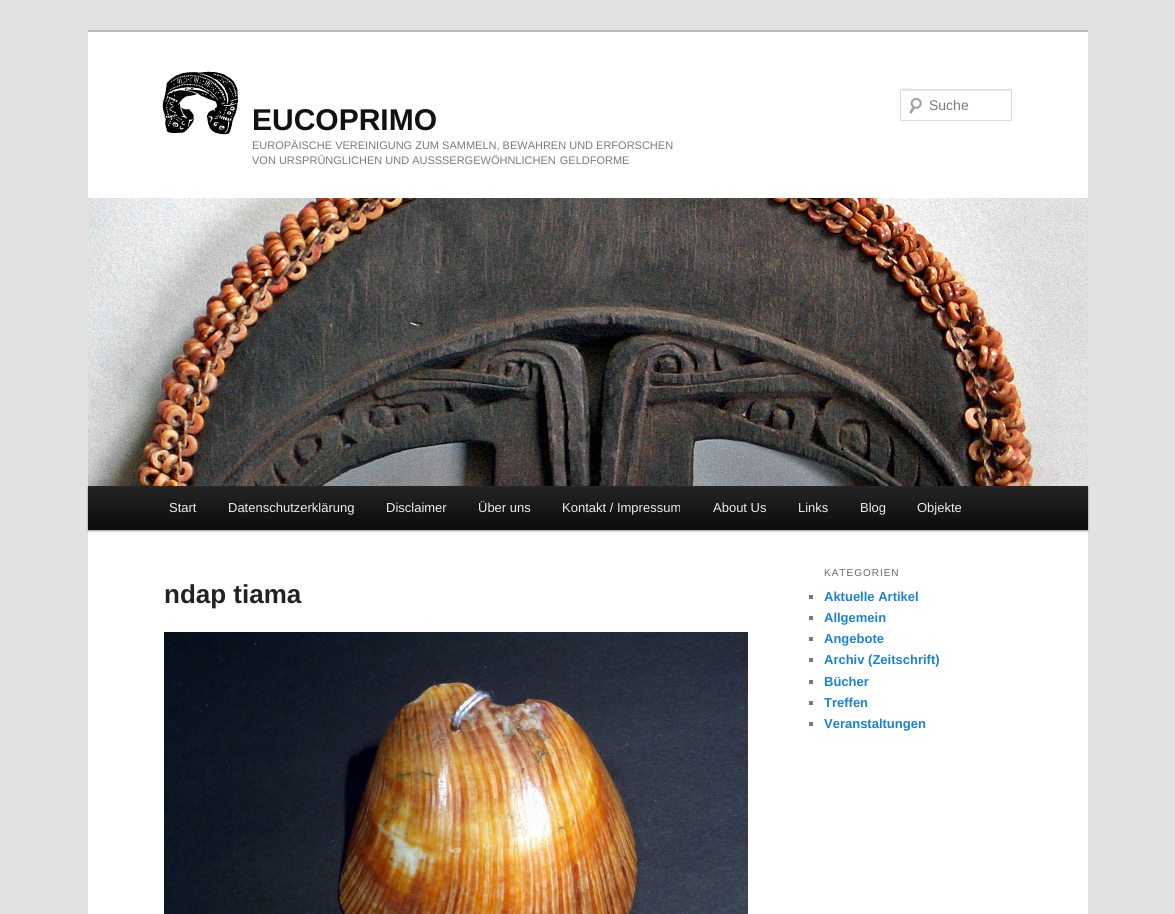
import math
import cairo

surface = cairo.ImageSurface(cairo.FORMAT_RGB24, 1175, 914)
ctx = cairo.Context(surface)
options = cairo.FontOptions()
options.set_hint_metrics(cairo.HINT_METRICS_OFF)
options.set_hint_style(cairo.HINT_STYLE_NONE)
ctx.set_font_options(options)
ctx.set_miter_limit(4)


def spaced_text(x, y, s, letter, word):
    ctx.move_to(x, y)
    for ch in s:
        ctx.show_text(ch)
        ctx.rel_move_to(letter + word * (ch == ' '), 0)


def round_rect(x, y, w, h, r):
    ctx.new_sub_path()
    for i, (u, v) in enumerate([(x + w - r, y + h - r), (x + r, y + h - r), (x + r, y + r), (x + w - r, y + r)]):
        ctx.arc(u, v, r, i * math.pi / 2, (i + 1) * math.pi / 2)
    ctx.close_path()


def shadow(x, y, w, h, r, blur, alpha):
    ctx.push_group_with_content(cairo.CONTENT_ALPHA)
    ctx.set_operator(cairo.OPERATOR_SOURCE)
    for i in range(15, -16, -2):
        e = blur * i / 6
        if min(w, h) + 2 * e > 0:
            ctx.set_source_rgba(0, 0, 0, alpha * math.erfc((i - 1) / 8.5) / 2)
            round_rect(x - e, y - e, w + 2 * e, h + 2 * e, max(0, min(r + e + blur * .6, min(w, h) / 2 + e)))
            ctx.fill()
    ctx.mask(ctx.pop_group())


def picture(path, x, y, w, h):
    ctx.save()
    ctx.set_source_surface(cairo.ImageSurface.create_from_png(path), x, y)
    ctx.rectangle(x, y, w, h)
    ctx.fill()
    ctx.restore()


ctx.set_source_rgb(0.886, 0.886, 0.886)
ctx.paint()
ctx.set_source_rgb(1, 1, 1)
ctx.rectangle(88, 32, 1000, 882)
ctx.fill()
picture("img1.png", 162, 71, 77, 64)
ctx.set_source_rgb(0.733, 0.733, 0.733)
ctx.rectangle(88, 30, 1000, 2)
ctx.fill()
picture("img2.png", 909, 97, 13, 17)
ctx.set_source_rgb(0.902, 0.902, 0.902)
ctx.new_path()
ctx.move_to(902, 91)
ctx.line_to(1011, 91)
ctx.line_to(1011, 92)
ctx.line_to(1010, 90)
ctx.line_to(920, 90)
ctx.curve_to(916, 90, 901, 85, 901, 92)
ctx.curve_to(901, 91, 901, 91, 902, 91)
ctx.close_path()
ctx.fill()
round_rect(900.5, 89.5, 111, 31, 1.5)
ctx.set_source_rgb(0.867, 0.867, 0.867)
ctx.set_line_width(1)
ctx.stroke()
ctx.select_font_face("Liberation Sans")
ctx.set_font_size(14)
ctx.set_source_rgb(0.478, 0.478, 0.478)
ctx.move_to(929, 110)
ctx.show_text("Suche")
ctx.select_font_face("Liberation Sans", cairo.FONT_SLANT_NORMAL, cairo.FONT_WEIGHT_BOLD)
ctx.set_font_size(30)
ctx.set_source_rgb(0.067, 0.067, 0.067)
ctx.move_to(252, 130)
ctx.show_text("EUCOPRIMO")
ctx.select_font_face("Liberation Sans")
ctx.set_font_size(11)
ctx.set_source_rgb(0.478, 0.478, 0.478)
ctx.move_to(252, 149)
ctx.show_text("EUROPÄISCHE VEREINIGUNG ZUM SAMMELN, BEWAHREN UND ERFORSCHEN")
ctx.move_to(252, 164)
ctx.show_text("VON URSPRÜNGLICHEN UND AUSS")
spaced_text(442, 164, "SERGEWÖHNLICHEN GELDFORME", 0, 1)
ctx.set_source_rgb(0, 0, 0)
shadow(88, 487, 1000, 44, 0, 1, 0.4)
picture("img3.png", 88, 198, 1000, 288)
gradient = cairo.LinearGradient(588, 486, 588, 530)
gradient.add_color_stop_rgba(0, 0.145, 0.145, 0.145, 1)
gradient.add_color_stop_rgba(1, 0.039, 0.039, 0.039, 1)
ctx.set_source(gradient)
ctx.rectangle(88, 486, 1000, 44)
ctx.fill()
ctx.set_font_size(13)
ctx.set_source_rgb(0.933, 0.933, 0.933)
ctx.move_to(169, 512)
ctx.show_text("Start")
ctx.move_to(228, 512)
ctx.show_text("Datenschutzerklärung")
ctx.move_to(386, 512)
ctx.show_text("Disclaimer")
ctx.move_to(478, 512)
ctx.show_text("Über uns")
ctx.move_to(562, 512)
ctx.show_text("Kontakt / Impressum")
ctx.move_to(713, 512)
ctx.show_text("About Us")
ctx.move_to(798, 512)
ctx.show_text("Links")
ctx.move_to(860, 512)
ctx.show_text("Blog")
ctx.move_to(917, 512)
ctx.show_text("Objekte")
ctx.select_font_face("Liberation Sans", cairo.FONT_SLANT_NORMAL, cairo.FONT_WEIGHT_BOLD)
ctx.set_font_size(26)
ctx.set_source_rgb(0.133, 0.133, 0.133)
ctx.move_to(164, 603)
ctx.show_text("ndap tiama")
picture("img4.png", 164, 632, 584, 282)
ctx.select_font_face("Liberation Sans")
ctx.set_font_size(10)
ctx.set_source_rgb(0.4, 0.4, 0.4)
spaced_text(824, 576, "KATEGORIEN", 1, 0)
ctx.set_source_rgb(0.467, 0.467, 0.467)
ctx.rectangle(809, 595, 4, 4)
ctx.fill()
ctx.select_font_face("Liberation Sans", cairo.FONT_SLANT_NORMAL, cairo.FONT_WEIGHT_BOLD)
ctx.set_font_size(13)
ctx.set_source_rgb(0.098, 0.51, 0.82)
ctx.move_to(824, 601)
ctx.show_text("Aktuelle Artikel")
ctx.set_source_rgb(0.467, 0.467, 0.467)
ctx.rectangle(809, 616, 4, 4)
ctx.fill()
ctx.set_source_rgb(0.098, 0.51, 0.82)
ctx.move_to(824, 622)
ctx.show_text("Allgemein")
ctx.set_source_rgb(0.467, 0.467, 0.467)
ctx.rectangle(809, 637, 4, 4)
ctx.fill()
ctx.set_source_rgb(0.098, 0.51, 0.82)
ctx.move_to(824, 643)
ctx.show_text("Angebote")
ctx.set_source_rgb(0.467, 0.467, 0.467)
ctx.rectangle(809, 658, 4, 4)
ctx.fill()
ctx.set_source_rgb(0.098, 0.51, 0.82)
ctx.move_to(824, 664)
ctx.show_text("Archiv (Zeitschrift)")
ctx.set_source_rgb(0.467, 0.467, 0.467)
ctx.rectangle(809, 680, 4, 4)
ctx.fill()
ctx.set_source_rgb(0.098, 0.51, 0.82)
ctx.move_to(824, 686)
ctx.show_text("Bücher")
ctx.set_source_rgb(0.467, 0.467, 0.467)
ctx.rectangle(809, 701, 4, 4)
ctx.fill()
ctx.set_source_rgb(0.098, 0.51, 0.82)
ctx.move_to(824, 707)
ctx.show_text("Treffen")
ctx.set_source_rgb(0.467, 0.467, 0.467)
ctx.rectangle(809, 722, 4, 4)
ctx.fill()
ctx.set_source_rgb(0.098, 0.51, 0.82)
ctx.move_to(824, 728)
ctx.show_text("Veranstaltungen")
surface.write_to_png("page.png")
